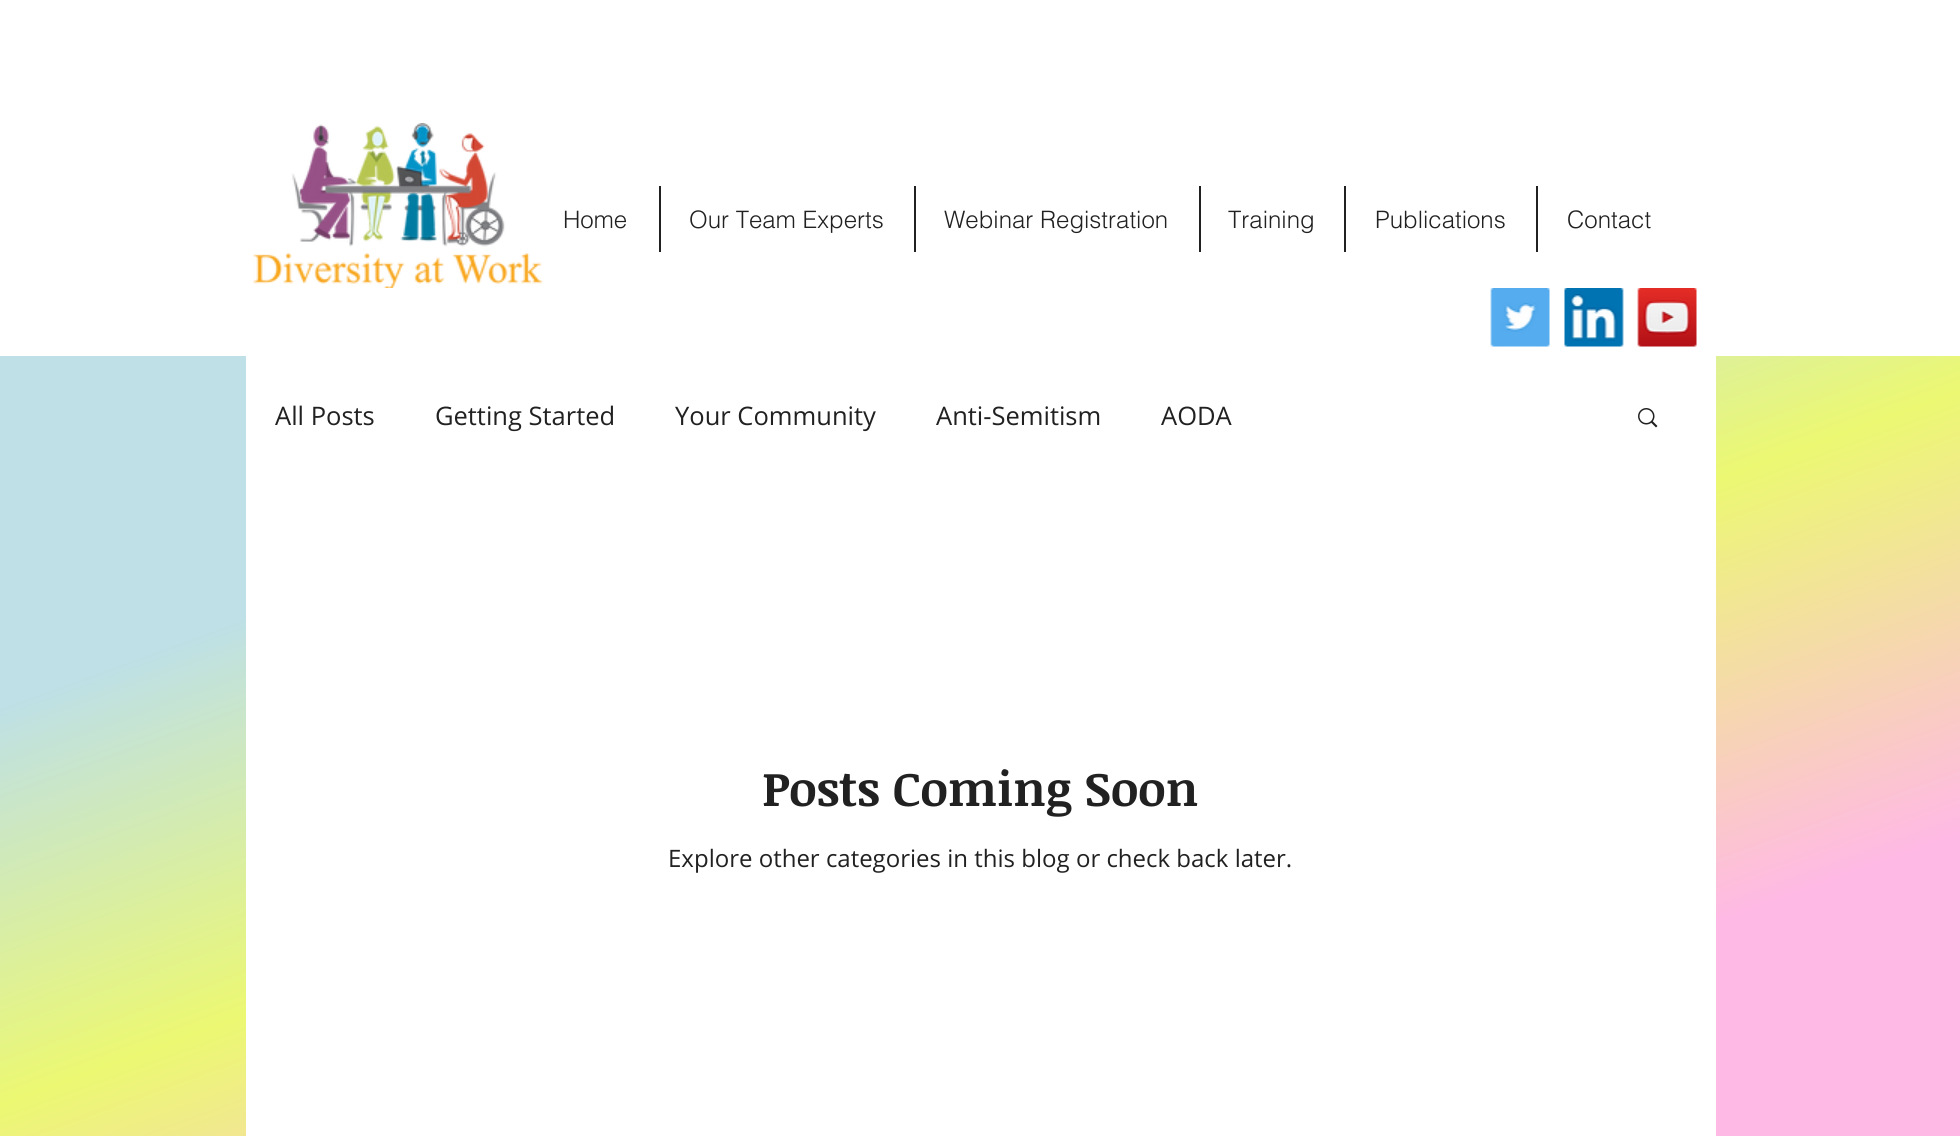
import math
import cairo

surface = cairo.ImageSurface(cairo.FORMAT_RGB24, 1960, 1136)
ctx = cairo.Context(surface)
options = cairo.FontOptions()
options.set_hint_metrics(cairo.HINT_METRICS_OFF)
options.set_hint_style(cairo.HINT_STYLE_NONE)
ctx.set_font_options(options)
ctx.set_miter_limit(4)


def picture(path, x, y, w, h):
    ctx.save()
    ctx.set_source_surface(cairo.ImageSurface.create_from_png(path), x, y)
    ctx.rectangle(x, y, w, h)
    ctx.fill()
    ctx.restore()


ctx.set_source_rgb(1, 1, 1)
ctx.paint()
picture("img1.png", 253, 123, 290, 165)
ctx.select_font_face("helvetica Light")
ctx.set_font_size(24)
ctx.set_source_rgb(0.129, 0.129, 0.129)
ctx.move_to(563, 228)
ctx.show_text("Home")
ctx.rectangle(659, 186, 2, 66)
ctx.fill()
ctx.move_to(689, 228)
ctx.show_text("Our Team Experts")
ctx.rectangle(914, 186, 2, 66)
ctx.fill()
ctx.move_to(944, 228)
ctx.show_text("Webinar Registration")
ctx.rectangle(1199, 186, 2, 66)
ctx.fill()
ctx.move_to(1228, 228)
ctx.show_text("Training")
ctx.rectangle(1344, 186, 2, 66)
ctx.fill()
ctx.move_to(1375, 228)
ctx.show_text("Publications")
ctx.rectangle(1536, 186, 2, 66)
ctx.fill()
ctx.move_to(1567, 228)
ctx.show_text("Contact")
picture("img2.png", 1490, 288, 60, 59)
picture("img3.png", 1564, 288, 60, 59)
picture("img4.png", 1637, 288, 60, 59)
gradient = cairo.LinearGradient(1226, 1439, 734, 88)
gradient.add_color_stop_rgba(0.22, 1, 0.725, 0.898, 1)
gradient.add_color_stop_rgba(0.51, 0.925, 0.973, 0.447, 1)
gradient.add_color_stop_rgba(0.77, 0.745, 0.878, 0.902, 1)
ctx.set_source(gradient)
ctx.rectangle(0, 356, 1960, 780)
ctx.fill()
ctx.set_source_rgb(1, 1, 1)
ctx.rectangle(246, 356, 1470, 780)
ctx.fill()
ctx.select_font_face("Open Sans")
ctx.set_font_size(25.5)
ctx.set_source_rgb(0.129, 0.129, 0.129)
ctx.move_to(275, 425)
ctx.show_text("All Posts")
ctx.move_to(435, 425)
ctx.show_text("Getting Started")
ctx.move_to(675, 425)
ctx.show_text("Your Community")
ctx.move_to(936, 425)
ctx.show_text("Anti-Semitism")
ctx.move_to(1161, 425)
ctx.show_text("AODA")
picture("img5.png", 1638, 408, 20, 20)
ctx.select_font_face("Noticia Text", cairo.FONT_SLANT_NORMAL, cairo.FONT_WEIGHT_BOLD)
ctx.set_font_size(48)
ctx.move_to(762, 806)
ctx.show_text("Posts Coming Soon")
ctx.select_font_face("Open Sans")
ctx.set_font_size(24)
ctx.move_to(668, 867)
ctx.show_text("Explore other categories in this blog or check back later.")
surface.write_to_png("page.png")
